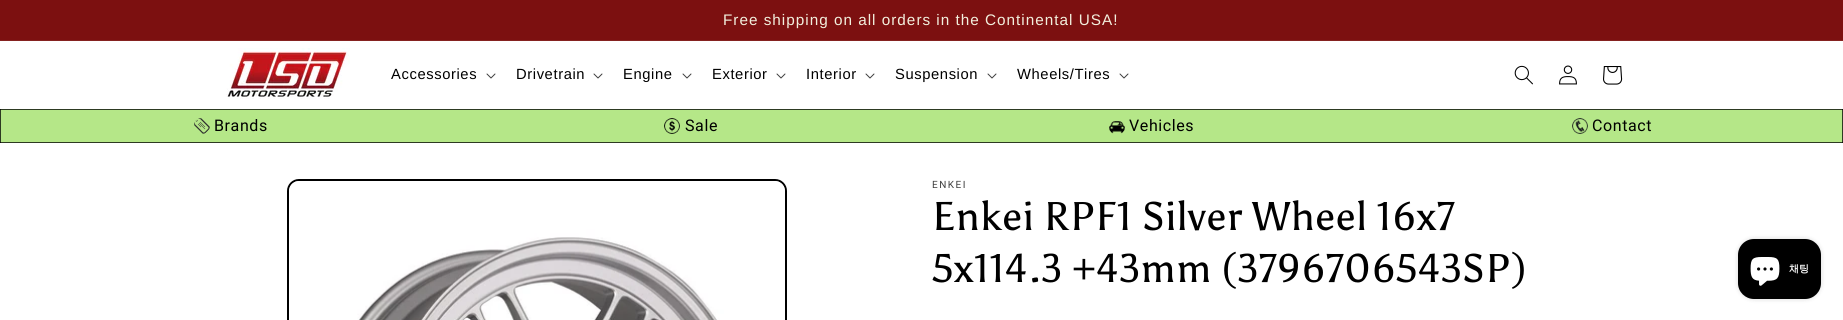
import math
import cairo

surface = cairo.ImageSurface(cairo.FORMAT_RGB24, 1843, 320)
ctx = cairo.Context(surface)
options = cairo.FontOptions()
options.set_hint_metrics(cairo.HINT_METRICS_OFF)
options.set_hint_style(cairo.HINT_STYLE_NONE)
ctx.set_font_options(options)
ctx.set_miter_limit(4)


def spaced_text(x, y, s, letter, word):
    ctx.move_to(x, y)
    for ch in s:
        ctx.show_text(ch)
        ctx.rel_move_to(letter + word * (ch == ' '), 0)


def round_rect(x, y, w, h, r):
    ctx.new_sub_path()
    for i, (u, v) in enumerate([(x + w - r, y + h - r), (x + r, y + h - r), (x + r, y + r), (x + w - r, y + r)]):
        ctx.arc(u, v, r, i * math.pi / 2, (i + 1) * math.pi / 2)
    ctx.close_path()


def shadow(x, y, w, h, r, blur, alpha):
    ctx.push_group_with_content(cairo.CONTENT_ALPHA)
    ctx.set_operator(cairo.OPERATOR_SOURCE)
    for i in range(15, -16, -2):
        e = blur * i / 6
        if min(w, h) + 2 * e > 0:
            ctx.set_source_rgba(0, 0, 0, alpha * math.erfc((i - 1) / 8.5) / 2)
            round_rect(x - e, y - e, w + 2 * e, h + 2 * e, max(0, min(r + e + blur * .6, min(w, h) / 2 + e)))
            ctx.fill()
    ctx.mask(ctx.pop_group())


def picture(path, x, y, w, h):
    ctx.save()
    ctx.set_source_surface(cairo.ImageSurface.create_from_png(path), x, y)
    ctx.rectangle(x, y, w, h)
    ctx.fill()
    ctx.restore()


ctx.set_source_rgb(1, 1, 1)
ctx.paint()
ctx.set_source_rgb(0.486, 0.063, 0.063)
ctx.rectangle(0, 0, 1843, 40)
ctx.fill()
ctx.set_source_rgb(0.522, 0.133, 0.125)
ctx.rectangle(0, 40, 1843, 1)
ctx.fill()
ctx.select_font_face("Liberation Sans")
ctx.set_font_size(15.3)
ctx.set_source_rgb(0.949, 0.937, 0.867)
spaced_text(723, 25, "Free shipping on all orders in the Continental USA!", 1, 0)
picture("img1.png", 226, 48, 124, 51)
ctx.set_font_size(14.75)
ctx.set_source_rgb(0, 0, 0)
spaced_text(391, 79, "Accessories", 0.6, 0)
picture("img2.png", 486, 73, 10, 6)
spaced_text(516, 79, "Drivetrain", 0.6, 0)
picture("img2.png", 593, 73, 10, 6)
spaced_text(623, 79, "Engine", 0.6, 0)
picture("img2.png", 682, 73, 10, 6)
spaced_text(712, 79, "Exterior", 0.6, 0)
picture("img2.png", 776, 73, 10, 6)
spaced_text(806, 79, "Interior", 0.6, 0)
picture("img2.png", 865, 73, 10, 6)
spaced_text(895, 79, "Suspension", 0.6, 0)
picture("img2.png", 987, 73, 10, 6)
spaced_text(1017, 79, "Wheels/Tires", 0.6, 0)
picture("img2.png", 1119, 73, 10, 6)
picture("img3.png", 1514, 65, 19, 20)
picture("img4.png", 1559, 65, 18, 20)
picture("img5.png", 1603, 66, 20, 19)
ctx.set_source_rgb(0.71, 0.906, 0.533)
ctx.rectangle(1, 110, 1841, 32)
ctx.fill()
ctx.set_source_rgb(0.176, 0.227, 0.133)
ctx.rectangle(0, 109, 1, 34)
ctx.fill()
ctx.rectangle(0, 142, 1843, 1)
ctx.fill()
ctx.set_source_rgb(0.043, 0.059, 0.035)
ctx.rectangle(0, 142, 1, 1)
ctx.fill()
ctx.set_source_rgb(0.176, 0.227, 0.133)
ctx.rectangle(1842, 109, 1, 34)
ctx.fill()
ctx.set_source_rgb(0.043, 0.059, 0.035)
ctx.rectangle(1842, 142, 1, 1)
ctx.fill()
ctx.set_source_rgb(0.176, 0.227, 0.133)
ctx.rectangle(0, 109, 1843, 1)
ctx.fill()
ctx.set_source_rgb(0.043, 0.059, 0.035)
ctx.rectangle(0, 109, 1, 1)
ctx.fill()
ctx.rectangle(1842, 109, 1, 1)
ctx.fill()
picture("img6.png", 194, 118, 16, 16)
ctx.select_font_face("Roboto")
ctx.set_font_size(16)
ctx.set_source_rgb(0, 0, 0)
spaced_text(214, 131, "Brands", 0.6, 0)
picture("img7.png", 664, 118, 16, 16)
spaced_text(685, 131, "Sale", 0.6, 0)
picture("img8.png", 1109, 121, 16, 13)
spaced_text(1129, 131, "Vehicles", 0.6, 0)
picture("img9.png", 1572, 118, 16, 16)
spaced_text(1592, 131, "Contact", 0.6, 0)
round_rect(288, 180, 498, 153, 11)
ctx.stroke()
picture("img10.png", 289, 181, 496, 139)
ctx.set_font_size(10)
ctx.set_source_rgb(0.251, 0.251, 0.251)
spaced_text(932, 188, "ENKEI", 1.5, 0)
ctx.select_font_face("Asul")
ctx.set_font_size(40)
ctx.set_source_rgb(0, 0, 0)
spaced_text(932, 230, "Enkei RPF1 Silver Wheel 16x7", 0.6, 0)
spaced_text(932, 282, "5x114.3 +43mm (3796706543SP)", 0.6, 0)
ctx.set_source_rgb(0, 0, 0)
shadow(1738, 239, 83, 60, 16, 2.5, 0.15)
ctx.set_source_rgb(0, 0, 0)
round_rect(1738, 239, 83, 60, 16)
ctx.fill()
picture("img11.png", 1750, 257, 30, 29)
ctx.select_font_face("WenQuanYi Zen Hei", cairo.FONT_SLANT_NORMAL, cairo.FONT_WEIGHT_BOLD)
ctx.set_font_size(10)
ctx.set_source_rgb(1, 1, 1)
ctx.move_to(1789, 272)
ctx.show_text("채팅")
surface.write_to_png("page.png")
